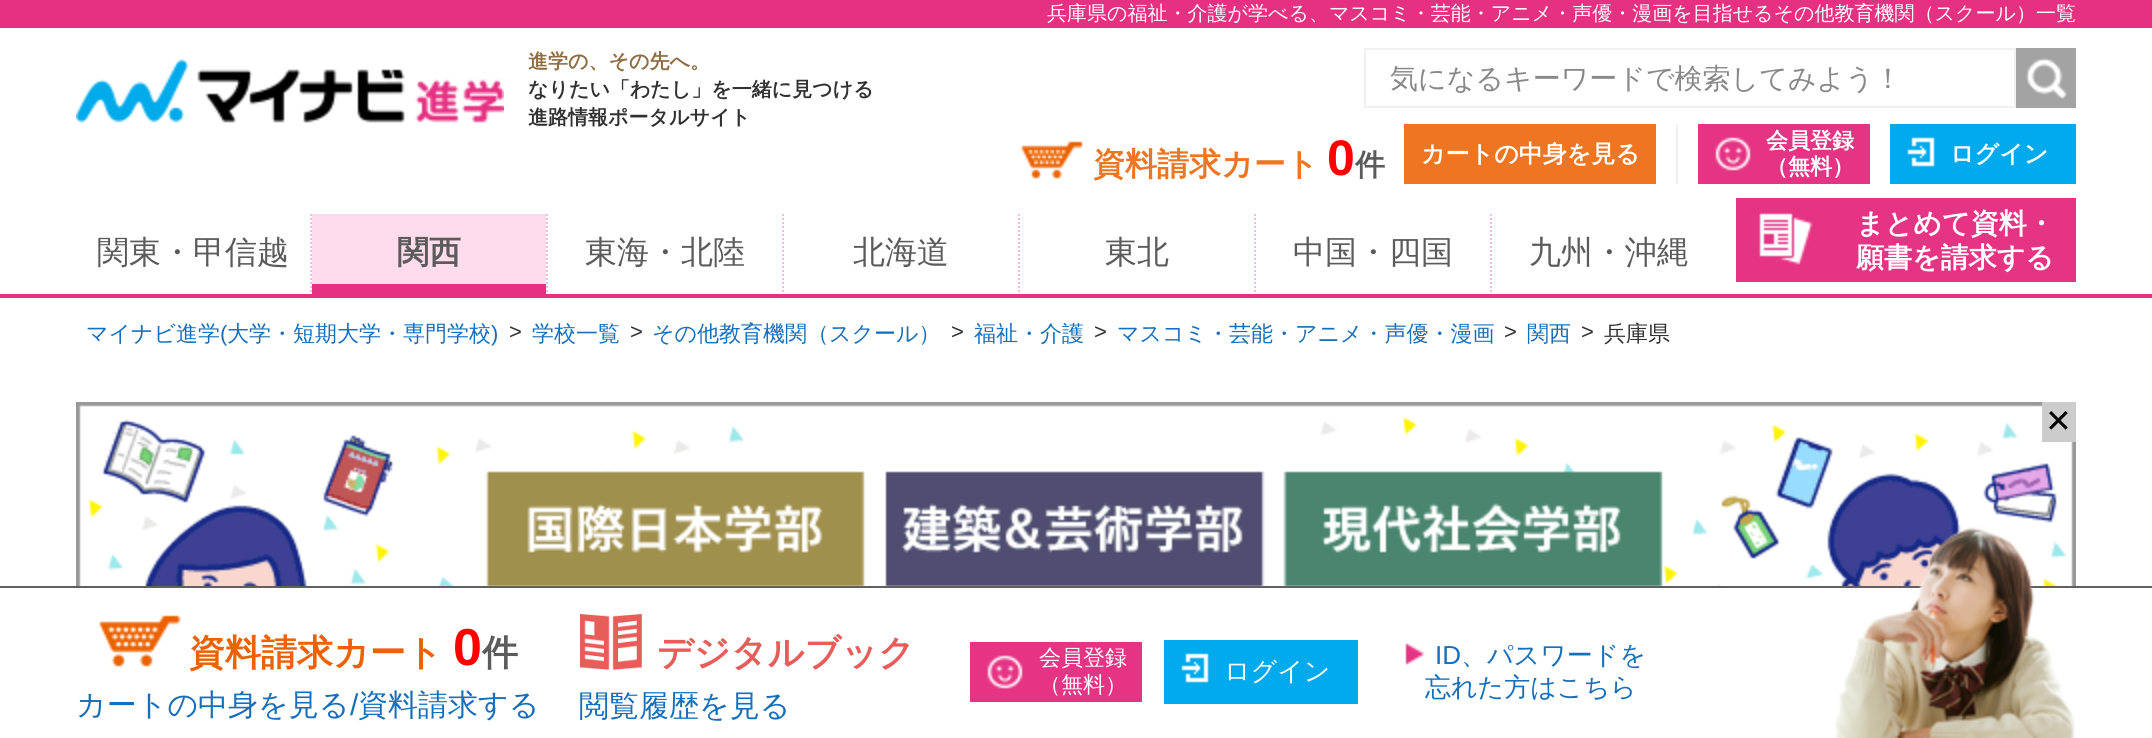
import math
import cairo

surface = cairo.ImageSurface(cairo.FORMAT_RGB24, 2152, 738)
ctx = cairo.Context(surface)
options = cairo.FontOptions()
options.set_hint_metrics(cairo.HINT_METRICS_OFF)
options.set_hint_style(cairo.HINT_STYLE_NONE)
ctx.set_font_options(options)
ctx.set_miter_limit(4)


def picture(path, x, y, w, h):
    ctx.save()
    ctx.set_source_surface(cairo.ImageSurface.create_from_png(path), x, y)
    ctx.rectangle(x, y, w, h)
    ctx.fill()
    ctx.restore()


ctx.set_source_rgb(1, 1, 1)
ctx.paint()
ctx.set_source_rgb(0.902, 0.188, 0.51)
ctx.rectangle(0, 0, 2152, 28)
ctx.fill()
ctx.select_font_face("WenQuanYi Zen Hei Medium")
ctx.set_font_size(20)
ctx.set_source_rgb(1, 1, 1)
ctx.move_to(1047, 20)
ctx.show_text("兵庫県の福祉・介護が学べる、マスコミ・芸能・アニメ・声優・漫画を目指せるその他教育機関（スクール）一覧")
picture("img1.png", 76, 59, 428, 64)
ctx.select_font_face("WenQuanYi Zen Hei", cairo.FONT_SLANT_NORMAL, cairo.FONT_WEIGHT_BOLD)
ctx.set_source_rgb(0.557, 0.427, 0.263)
ctx.move_to(528, 68)
ctx.show_text("進学の、その先へ。")
ctx.set_source_rgb(0.192, 0.192, 0.192)
ctx.move_to(528, 96)
ctx.show_text("なりたい「わたし」を一緒に見つける")
ctx.move_to(528, 124)
ctx.show_text("進路情報ポータルサイト")
ctx.rectangle(1365, 49, 650, 58)
ctx.set_source_rgb(0.941, 0.941, 0.941)
ctx.stroke()
ctx.select_font_face("WenQuanYi Zen Hei Medium")
ctx.set_font_size(28)
ctx.set_source_rgb(0.533, 0.533, 0.533)
ctx.move_to(1390, 88)
ctx.show_text("気になるキーワードで検索してみよう！")
ctx.set_source_rgb(0.639, 0.639, 0.639)
ctx.rectangle(2016, 48, 60, 60)
ctx.fill()
picture("img2.png", 2026, 58, 41, 41)
picture("img3.png", 1021, 141, 62, 38)
ctx.select_font_face("WenQuanYi Zen Hei", cairo.FONT_SLANT_NORMAL, cairo.FONT_WEIGHT_BOLD)
ctx.set_font_size(32)
ctx.set_source_rgb(0.933, 0.463, 0.133)
ctx.move_to(1093, 175)
ctx.show_text("資料請求カート")
ctx.select_font_face("Liberation Sans", cairo.FONT_SLANT_NORMAL, cairo.FONT_WEIGHT_BOLD)
ctx.set_font_size(50)
ctx.set_source_rgb(1, 0, 0)
ctx.move_to(1327, 175)
ctx.show_text("0")
ctx.select_font_face("WenQuanYi Zen Hei", cairo.FONT_SLANT_NORMAL, cairo.FONT_WEIGHT_BOLD)
ctx.set_font_size(30)
ctx.set_source_rgb(0.357, 0.357, 0.357)
ctx.move_to(1355, 175)
ctx.show_text("件")
ctx.set_source_rgb(0.933, 0.463, 0.133)
ctx.rectangle(1404, 124, 252, 60)
ctx.fill()
ctx.set_font_size(24)
ctx.set_source_rgb(1, 1, 1)
ctx.move_to(1421, 162)
ctx.show_text("カートの中身を見る")
ctx.set_source_rgb(0.941, 0.941, 0.941)
ctx.rectangle(1676, 124, 2, 60)
ctx.fill()
ctx.set_source_rgb(0.902, 0.204, 0.518)
ctx.rectangle(1698, 124, 172, 60)
ctx.fill()
picture("img4.png", 1715, 137, 36, 34)
ctx.set_font_size(22)
ctx.set_source_rgb(1, 1, 1)
ctx.move_to(1766, 148)
ctx.show_text("会員登録")
ctx.move_to(1766, 174)
ctx.show_text("（無料）")
ctx.set_source_rgb(0, 0.667, 0.922)
ctx.rectangle(1890, 124, 186, 60)
ctx.fill()
picture("img5.png", 1907, 137, 28, 30)
ctx.set_font_size(24)
ctx.set_source_rgb(1, 1, 1)
ctx.move_to(1950, 162)
ctx.show_text("ログイン")
ctx.set_source_rgb(0.902, 0.204, 0.518)
ctx.rectangle(1736, 198, 340, 84)
ctx.fill()
picture("img6.png", 1759, 213, 54, 52)
ctx.set_font_size(28)
ctx.set_source_rgb(1, 1, 1)
ctx.move_to(1856, 233)
ctx.show_text("まとめて資料・")
ctx.move_to(1856, 267)
ctx.show_text("願書を請求する")
ctx.set_source_rgb(0.902, 0.188, 0.51)
ctx.rectangle(0, 294, 2152, 4)
ctx.fill()
ctx.select_font_face("WenQuanYi Zen Hei Medium")
ctx.set_font_size(32)
ctx.set_source_rgb(0.357, 0.357, 0.357)
ctx.move_to(97, 263)
ctx.show_text("関東・甲信越")
ctx.new_path()
ctx.move_to(311, 214)
ctx.line_to(311, 294)
ctx.set_source_rgb(1, 0.729, 0.851)
ctx.set_dash([2, 2])
ctx.stroke()
ctx.set_source_rgb(1, 0.863, 0.925)
ctx.rectangle(312, 214, 234, 70)
ctx.fill()
ctx.select_font_face("WenQuanYi Zen Hei", cairo.FONT_SLANT_NORMAL, cairo.FONT_WEIGHT_BOLD)
ctx.set_source_rgb(0.357, 0.357, 0.357)
ctx.move_to(397, 263)
ctx.show_text("関西")
ctx.set_source_rgb(0.902, 0.188, 0.51)
ctx.rectangle(312, 284, 234, 10)
ctx.fill()
ctx.new_path()
ctx.move_to(547, 214)
ctx.line_to(547, 294)
ctx.set_source_rgb(1, 0.729, 0.851)
ctx.stroke()
ctx.select_font_face("WenQuanYi Zen Hei Medium")
ctx.set_source_rgb(0.357, 0.357, 0.357)
ctx.move_to(585, 263)
ctx.show_text("東海・北陸")
ctx.new_path()
ctx.move_to(783, 214)
ctx.line_to(783, 294)
ctx.set_source_rgb(1, 0.729, 0.851)
ctx.stroke()
ctx.set_source_rgb(0.357, 0.357, 0.357)
ctx.move_to(853, 263)
ctx.show_text("北海道")
ctx.new_path()
ctx.move_to(1019, 214)
ctx.line_to(1019, 294)
ctx.set_source_rgb(1, 0.729, 0.851)
ctx.stroke()
ctx.set_source_rgb(0.357, 0.357, 0.357)
ctx.move_to(1105, 263)
ctx.show_text("東北")
ctx.new_path()
ctx.move_to(1255, 214)
ctx.line_to(1255, 294)
ctx.set_source_rgb(1, 0.729, 0.851)
ctx.stroke()
ctx.set_source_rgb(0.357, 0.357, 0.357)
ctx.move_to(1293, 263)
ctx.show_text("中国・四国")
ctx.new_path()
ctx.move_to(1491, 214)
ctx.line_to(1491, 294)
ctx.set_source_rgb(1, 0.729, 0.851)
ctx.stroke()
ctx.set_source_rgb(0.357, 0.357, 0.357)
ctx.move_to(1529, 263)
ctx.show_text("九州・沖縄")
ctx.set_font_size(22)
ctx.set_source_rgb(0.09, 0.435, 0.729)
ctx.move_to(86, 341)
ctx.show_text("マイナビ進学")
ctx.select_font_face("Liberation Sans")
ctx.move_to(220, 341)
ctx.show_text("(")
ctx.select_font_face("WenQuanYi Zen Hei Medium")
ctx.move_to(227, 341)
ctx.show_text("大学・短期大学・専門学校")
ctx.select_font_face("Liberation Sans")
ctx.move_to(491, 341)
ctx.show_text(")")
ctx.set_source_rgb(0.192, 0.192, 0.192)
ctx.move_to(509, 339)
ctx.show_text(">")
ctx.select_font_face("WenQuanYi Zen Hei Medium")
ctx.set_source_rgb(0.09, 0.435, 0.729)
ctx.move_to(532, 341)
ctx.show_text("学校一覧")
ctx.select_font_face("Liberation Sans")
ctx.set_source_rgb(0.192, 0.192, 0.192)
ctx.move_to(630, 339)
ctx.show_text(">")
ctx.select_font_face("WenQuanYi Zen Hei Medium")
ctx.set_source_rgb(0.09, 0.435, 0.729)
ctx.move_to(652, 341)
ctx.show_text("その他教育機関（スクール）")
ctx.select_font_face("Liberation Sans")
ctx.set_source_rgb(0.192, 0.192, 0.192)
ctx.move_to(951, 339)
ctx.show_text(">")
ctx.select_font_face("WenQuanYi Zen Hei Medium")
ctx.set_source_rgb(0.09, 0.435, 0.729)
ctx.move_to(974, 341)
ctx.show_text("福祉・介護")
ctx.select_font_face("Liberation Sans")
ctx.set_source_rgb(0.192, 0.192, 0.192)
ctx.move_to(1094, 339)
ctx.show_text(">")
ctx.select_font_face("WenQuanYi Zen Hei Medium")
ctx.set_source_rgb(0.09, 0.435, 0.729)
ctx.move_to(1117, 341)
ctx.show_text("マスコミ・芸能・アニメ・声優・漫画")
ctx.select_font_face("Liberation Sans")
ctx.set_source_rgb(0.192, 0.192, 0.192)
ctx.move_to(1504, 339)
ctx.show_text(">")
ctx.select_font_face("WenQuanYi Zen Hei Medium")
ctx.set_source_rgb(0.09, 0.435, 0.729)
ctx.move_to(1527, 341)
ctx.show_text("関西")
ctx.select_font_face("Liberation Sans")
ctx.set_source_rgb(0.192, 0.192, 0.192)
ctx.move_to(1581, 339)
ctx.show_text(">")
ctx.select_font_face("WenQuanYi Zen Hei Medium")
ctx.move_to(1604, 341)
ctx.show_text("兵庫県")
picture("img7.png", 76, 402, 2000, 184)
ctx.set_source_rgb(0.8, 0.8, 0.8)
ctx.rectangle(2042, 402, 34, 40)
ctx.fill()
ctx.select_font_face("DejaVu Sans")
ctx.set_font_size(32)
ctx.set_source_rgb(0, 0, 0)
ctx.move_to(2045, 432)
ctx.show_text("✕")
ctx.set_source_rgb(0.376, 0.376, 0.376)
ctx.rectangle(0, 586, 2152, 2)
ctx.fill()
picture("img8.png", 99, 615, 82, 52)
ctx.select_font_face("WenQuanYi Zen Hei", cairo.FONT_SLANT_NORMAL, cairo.FONT_WEIGHT_BOLD)
ctx.set_font_size(36)
ctx.set_source_rgb(0.922, 0.38, 0)
ctx.move_to(189, 665)
ctx.show_text("資料請求カート")
ctx.select_font_face("Liberation Sans", cairo.FONT_SLANT_NORMAL, cairo.FONT_WEIGHT_BOLD)
ctx.set_font_size(52)
ctx.set_source_rgb(1, 0, 0)
ctx.move_to(453, 665)
ctx.show_text("0")
ctx.select_font_face("WenQuanYi Zen Hei", cairo.FONT_SLANT_NORMAL, cairo.FONT_WEIGHT_BOLD)
ctx.set_font_size(36)
ctx.set_source_rgb(0.357, 0.357, 0.357)
ctx.move_to(482, 665)
ctx.show_text("件")
ctx.select_font_face("WenQuanYi Zen Hei Medium")
ctx.set_font_size(30)
ctx.set_source_rgb(0.09, 0.435, 0.729)
ctx.move_to(76, 715)
ctx.show_text("カートの中身を見る")
ctx.select_font_face("Liberation Sans")
ctx.move_to(350, 715)
ctx.show_text("/")
ctx.select_font_face("WenQuanYi Zen Hei Medium")
ctx.move_to(358, 715)
ctx.show_text("資料請求する")
picture("img9.png", 580, 614, 62, 56)
ctx.select_font_face("WenQuanYi Zen Hei", cairo.FONT_SLANT_NORMAL, cairo.FONT_WEIGHT_BOLD)
ctx.set_font_size(36)
ctx.set_source_rgb(0.902, 0.365, 0.353)
ctx.move_to(657, 665)
ctx.show_text("デジタルブック")
ctx.select_font_face("WenQuanYi Zen Hei Medium")
ctx.set_font_size(30)
ctx.set_source_rgb(0.09, 0.435, 0.729)
ctx.move_to(579, 716)
ctx.show_text("閲覧履歴を見る")
ctx.set_source_rgb(0.902, 0.204, 0.518)
ctx.rectangle(970, 642, 172, 60)
ctx.fill()
picture("img4.png", 987, 655, 36, 34)
ctx.set_font_size(22)
ctx.set_source_rgb(1, 1, 1)
ctx.move_to(1039, 665)
ctx.show_text("会員登録")
ctx.move_to(1039, 692)
ctx.show_text("（無料）")
ctx.set_source_rgb(0, 0.667, 0.922)
ctx.rectangle(1164, 640, 194, 64)
ctx.fill()
picture("img5.png", 1181, 653, 28, 30)
ctx.set_font_size(26)
ctx.set_source_rgb(1, 1, 1)
ctx.move_to(1224, 680)
ctx.show_text("ログイン")
picture("img10.png", 1405, 642, 20, 24)
ctx.select_font_face("Liberation Sans")
ctx.set_source_rgb(0.09, 0.435, 0.729)
ctx.move_to(1435, 664)
ctx.show_text("ID")
ctx.select_font_face("WenQuanYi Zen Hei Medium")
ctx.move_to(1461, 664)
ctx.show_text("、パスワードを")
ctx.move_to(1425, 696)
ctx.show_text("忘れた方はこちら")
picture("img11.png", 1835, 527, 240, 211)
surface.write_to_png("page.png")
